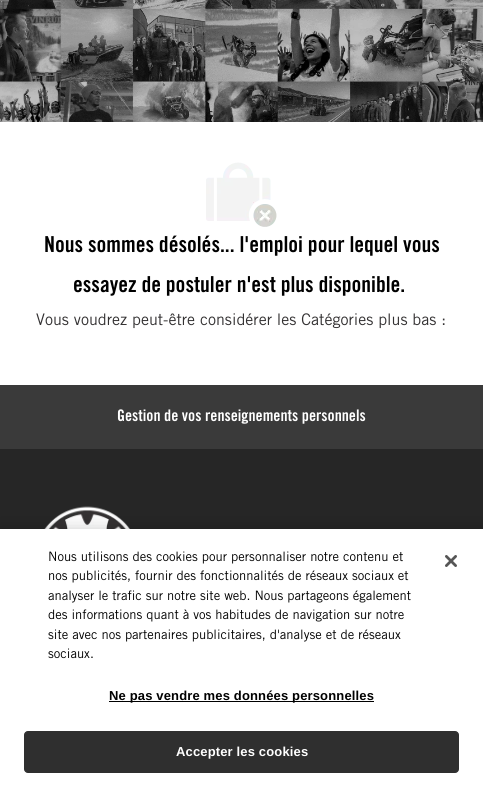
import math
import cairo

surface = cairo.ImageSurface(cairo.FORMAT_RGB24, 483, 789)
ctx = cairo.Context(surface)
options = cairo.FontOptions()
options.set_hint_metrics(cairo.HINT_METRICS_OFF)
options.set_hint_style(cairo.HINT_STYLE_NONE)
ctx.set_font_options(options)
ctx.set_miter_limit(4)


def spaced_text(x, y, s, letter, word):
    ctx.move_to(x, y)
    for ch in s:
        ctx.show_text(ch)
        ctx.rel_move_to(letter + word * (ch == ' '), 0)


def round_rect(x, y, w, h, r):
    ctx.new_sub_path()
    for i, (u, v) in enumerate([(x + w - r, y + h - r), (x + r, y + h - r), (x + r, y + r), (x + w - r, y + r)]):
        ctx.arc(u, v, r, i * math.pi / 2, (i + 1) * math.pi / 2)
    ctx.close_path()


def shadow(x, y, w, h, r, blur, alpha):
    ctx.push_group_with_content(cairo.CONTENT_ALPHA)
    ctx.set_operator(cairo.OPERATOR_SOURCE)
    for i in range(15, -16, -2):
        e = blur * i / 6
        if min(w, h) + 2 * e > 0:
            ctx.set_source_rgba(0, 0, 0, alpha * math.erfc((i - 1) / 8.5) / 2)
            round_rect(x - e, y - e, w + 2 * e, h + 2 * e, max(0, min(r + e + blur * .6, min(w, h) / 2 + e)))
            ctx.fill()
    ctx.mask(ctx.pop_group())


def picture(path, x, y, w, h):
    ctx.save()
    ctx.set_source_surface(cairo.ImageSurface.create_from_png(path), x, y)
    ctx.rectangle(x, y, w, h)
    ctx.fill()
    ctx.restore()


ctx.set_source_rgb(1, 1, 1)
ctx.paint()
picture("img1.png", 0, 0, 483, 122)
picture("img2.png", 206, 162, 71, 65)
ctx.select_font_face("Trade Gothic", cairo.FONT_SLANT_NORMAL, cairo.FONT_WEIGHT_BOLD)
ctx.set_font_size(22)
ctx.set_source_rgb(0, 0, 0)
ctx.move_to(44, 252)
ctx.show_text("Nous sommes désolés... l'emploi pour lequel vous")
ctx.move_to(73, 292)
ctx.show_text("essayez de postuler n'est plus disponible.")
ctx.select_font_face("Trade Gothic")
ctx.set_font_size(16)
ctx.set_source_rgb(0.2, 0.192, 0.196)
ctx.move_to(36, 325)
ctx.show_text("Vous voudrez peut-être considérer les Catégories plus bas :")
ctx.set_source_rgb(0.227, 0.227, 0.227)
ctx.rectangle(0, 385, 483, 64)
ctx.fill()
ctx.select_font_face("Trade Gothic", cairo.FONT_SLANT_NORMAL, cairo.FONT_WEIGHT_BOLD)
ctx.set_source_rgb(1, 1, 1)
ctx.move_to(117, 421)
ctx.show_text("Gestion de vos renseignements personnels")
ctx.set_source_rgb(0.149, 0.149, 0.149)
ctx.rectangle(0, 449, 483, 80)
ctx.fill()
picture("img3.png", 44, 506, 86, 23)
ctx.set_source_rgb(0, 0, 0)
shadow(0, 529, 483, 260, 0, 9, 0.2)
ctx.set_source_rgb(1, 1, 1)
ctx.rectangle(0, 529, 483, 260)
ctx.fill()
ctx.select_font_face("Trade Gothic")
ctx.set_font_size(13)
ctx.set_source_rgb(0, 0, 0)
ctx.move_to(48, 561)
ctx.show_text("Nous utilisons des cookies pour personnaliser notre contenu et")
ctx.move_to(48, 580)
ctx.show_text("nos publicités, fournir des fonctionnalités de réseaux sociaux et")
ctx.move_to(48, 600)
ctx.show_text("analyser le trafic sur notre site web. Nous partageons également")
ctx.move_to(48, 619)
ctx.show_text("des informations quant à vos habitudes de navigation sur notre")
ctx.move_to(48, 639)
ctx.show_text("site avec nos partenaires publicitaires, d'analyse et de réseaux")
ctx.move_to(48, 658)
ctx.show_text("sociaux.")
ctx.rectangle(109, 701, 265, 1)
ctx.fill()
ctx.select_font_face("Liberation Sans", cairo.FONT_SLANT_NORMAL, cairo.FONT_WEIGHT_BOLD)
spaced_text(109, 700, "Ne pas vendre mes données personnelles", 0.15, 0)
ctx.set_source_rgb(0.184, 0.184, 0.184)
round_rect(24.5, 731.5, 434, 41, 3.5)
ctx.fill_preserve()
ctx.set_line_width(1)
ctx.stroke()
ctx.set_source_rgb(1, 1, 1)
spaced_text(176, 756, "Accepter les cookies", 0.15, 0)
picture("img4.png", 445, 555, 12, 12)
surface.write_to_png("page.png")
